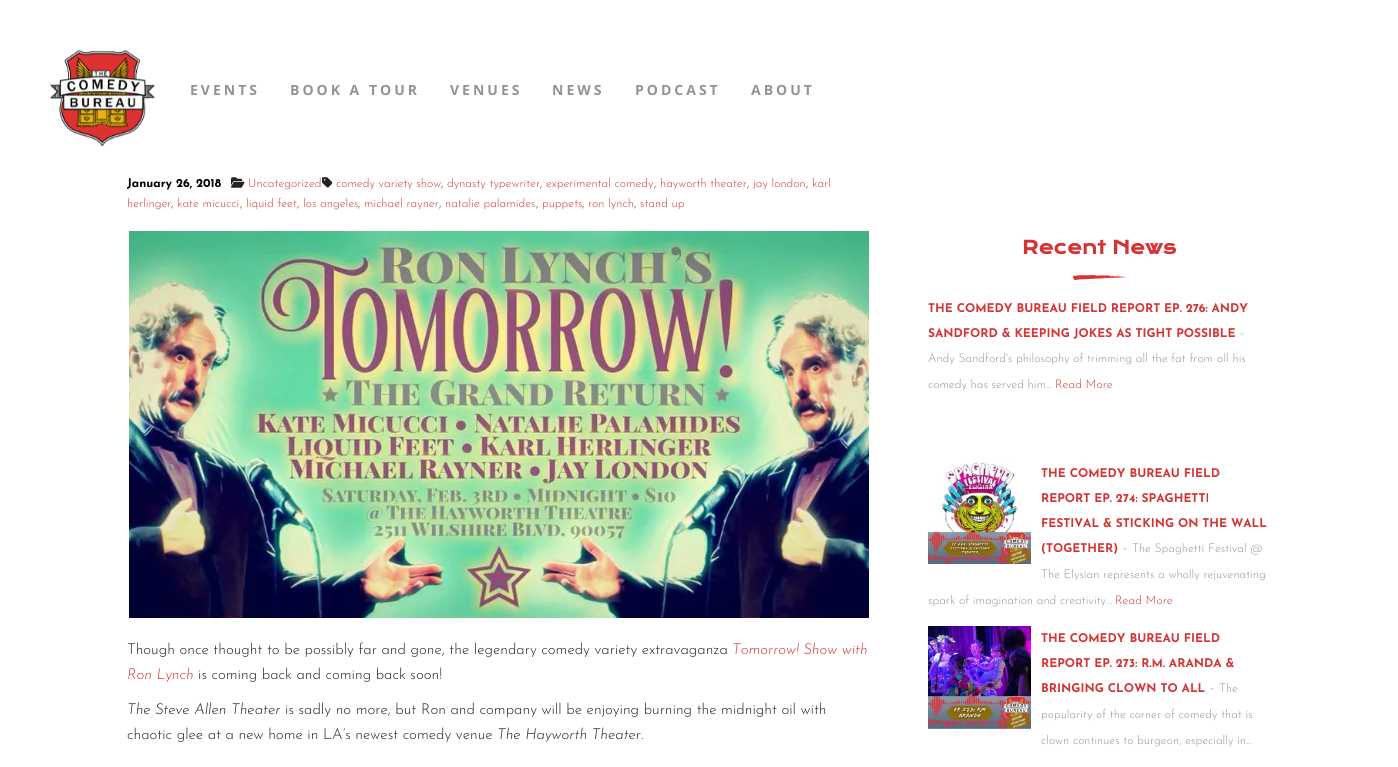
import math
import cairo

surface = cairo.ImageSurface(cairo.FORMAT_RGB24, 1398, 767)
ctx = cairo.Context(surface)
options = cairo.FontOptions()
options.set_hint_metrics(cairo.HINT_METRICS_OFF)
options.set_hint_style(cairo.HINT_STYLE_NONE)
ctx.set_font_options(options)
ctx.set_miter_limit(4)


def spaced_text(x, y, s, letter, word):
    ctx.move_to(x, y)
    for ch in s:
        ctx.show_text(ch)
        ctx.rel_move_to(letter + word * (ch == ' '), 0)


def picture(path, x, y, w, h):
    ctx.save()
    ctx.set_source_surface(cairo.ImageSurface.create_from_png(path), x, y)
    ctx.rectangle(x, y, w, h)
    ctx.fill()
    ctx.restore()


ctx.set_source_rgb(1, 1, 1)
ctx.paint()
picture("img1.png", 50, 49, 105, 98)
ctx.select_font_face("Open Sans", cairo.FONT_SLANT_NORMAL, cairo.FONT_WEIGHT_BOLD)
ctx.set_font_size(14)
ctx.set_source_rgb(0.576, 0.576, 0.576)
spaced_text(190, 95, "EVENTS", 3, 0)
spaced_text(290, 95, "BOOK A TOUR", 3, 0)
spaced_text(450, 95, "VENUES", 3, 0)
spaced_text(552, 95, "NEWS", 3, 0)
spaced_text(635, 95, "PODCAST", 3, 0)
spaced_text(751, 95, "ABOUT", 3, 0)
picture("img2.png", 322, 177, 11, 11)
ctx.select_font_face("Josefin Sans Light")
ctx.set_font_size(12)
ctx.set_source_rgb(0.827, 0.208, 0.208)
ctx.move_to(336, 187)
ctx.show_text("comedy variety show")
ctx.set_source_rgb(0.145, 0.129, 0.129)
ctx.move_to(441, 187)
ctx.show_text(",")
ctx.set_source_rgb(0.827, 0.208, 0.208)
ctx.move_to(447, 187)
ctx.show_text("dynasty typewriter")
ctx.set_source_rgb(0.145, 0.129, 0.129)
ctx.move_to(540, 187)
ctx.show_text(",")
ctx.set_source_rgb(0.827, 0.208, 0.208)
ctx.move_to(546, 187)
ctx.show_text("experimental comedy")
ctx.set_source_rgb(0.145, 0.129, 0.129)
ctx.move_to(654, 187)
ctx.show_text(",")
ctx.set_source_rgb(0.827, 0.208, 0.208)
ctx.move_to(660, 187)
ctx.show_text("hayworth theater")
ctx.set_source_rgb(0.145, 0.129, 0.129)
ctx.move_to(747, 187)
ctx.show_text(",")
ctx.set_source_rgb(0.827, 0.208, 0.208)
ctx.move_to(753, 187)
ctx.show_text("jay london")
ctx.set_source_rgb(0.145, 0.129, 0.129)
ctx.move_to(806, 187)
ctx.show_text(",")
ctx.set_source_rgb(0.827, 0.208, 0.208)
ctx.move_to(812, 187)
ctx.show_text("karl")
ctx.move_to(127, 207)
ctx.show_text("herlinger")
ctx.set_source_rgb(0.145, 0.129, 0.129)
ctx.move_to(171, 207)
ctx.show_text(",")
ctx.set_source_rgb(0.827, 0.208, 0.208)
ctx.move_to(177, 207)
ctx.show_text("kate micucci")
ctx.set_source_rgb(0.145, 0.129, 0.129)
ctx.move_to(240, 207)
ctx.show_text(",")
ctx.move_to(297, 207)
ctx.show_text(",")
ctx.set_source_rgb(0.827, 0.208, 0.208)
ctx.move_to(246, 207)
ctx.show_text("liquid feet")
ctx.move_to(303, 207)
ctx.show_text("los angeles")
ctx.set_source_rgb(0.145, 0.129, 0.129)
ctx.move_to(358, 207)
ctx.show_text(",")
ctx.set_source_rgb(0.827, 0.208, 0.208)
ctx.move_to(364, 207)
ctx.show_text("michael rayner")
ctx.set_source_rgb(0.145, 0.129, 0.129)
ctx.move_to(439, 207)
ctx.show_text(",")
ctx.set_source_rgb(0.827, 0.208, 0.208)
ctx.move_to(445, 207)
ctx.show_text("natalie palamides")
ctx.set_source_rgb(0.145, 0.129, 0.129)
ctx.move_to(536, 207)
ctx.show_text(",")
ctx.set_source_rgb(0.827, 0.208, 0.208)
ctx.move_to(542, 207)
ctx.show_text("puppets")
ctx.set_source_rgb(0.145, 0.129, 0.129)
ctx.move_to(582, 207)
ctx.show_text(",")
ctx.set_source_rgb(0.827, 0.208, 0.208)
ctx.move_to(588, 207)
ctx.show_text("ron lynch")
ctx.set_source_rgb(0.145, 0.129, 0.129)
ctx.move_to(634, 207)
ctx.show_text(",")
ctx.set_source_rgb(0.827, 0.208, 0.208)
ctx.move_to(640, 207)
ctx.show_text("stand up")
ctx.select_font_face("Josefin Sans", cairo.FONT_SLANT_NORMAL, cairo.FONT_WEIGHT_BOLD)
ctx.set_source_rgb(0, 0, 0)
ctx.move_to(127, 187)
ctx.show_text("January 26, 2018")
picture("img3.png", 231, 177, 14, 11)
ctx.select_font_face("Josefin Sans Light")
ctx.set_source_rgb(0.827, 0.208, 0.208)
ctx.move_to(248, 187)
ctx.show_text("Uncategorized")
picture("img4.png", 129, 231, 740, 387)
ctx.set_font_size(15)
ctx.set_source_rgb(0.145, 0.129, 0.129)
ctx.move_to(127, 654)
ctx.show_text("Though once thought to be possibly far and gone, the legendary comedy variety extravaganza")
ctx.select_font_face("Josefin Sans Light", cairo.FONT_SLANT_ITALIC)
ctx.set_source_rgb(0.827, 0.208, 0.208)
ctx.move_to(732, 654)
ctx.show_text("Tomorrow! Show with")
ctx.move_to(127, 679)
ctx.show_text("Ron Lynch")
ctx.select_font_face("Josefin Sans Light")
ctx.set_source_rgb(0.145, 0.129, 0.129)
ctx.move_to(198, 679)
ctx.show_text("is coming back and coming back soon!")
ctx.select_font_face("Josefin Sans Light", cairo.FONT_SLANT_ITALIC)
ctx.move_to(127, 714)
ctx.show_text("The Steve Allen Theater")
ctx.select_font_face("Josefin Sans Light")
ctx.move_to(285, 714)
ctx.show_text("is sadly no more, but Ron and company will be enjoying burning the midnight oil with")
ctx.move_to(127, 739)
ctx.show_text("chaotic glee at a new home in LA’s newest comedy venue")
ctx.select_font_face("Josefin Sans Light", cairo.FONT_SLANT_ITALIC)
ctx.move_to(497, 739)
ctx.show_text("The Hayworth Theater")
ctx.select_font_face("Josefin Sans Light")
ctx.move_to(641, 739)
ctx.show_text(".")
ctx.select_font_face("Krona One", cairo.FONT_SLANT_NORMAL, cairo.FONT_WEIGHT_BOLD)
ctx.set_font_size(18)
ctx.set_source_rgb(0.827, 0.208, 0.208)
ctx.move_to(1022, 254)
ctx.show_text("Recent News")
picture("img5.png", 1073, 275, 53, 5)
ctx.select_font_face("Josefin Sans", cairo.FONT_SLANT_NORMAL, cairo.FONT_WEIGHT_BOLD)
ctx.set_font_size(12)
ctx.move_to(928, 312)
ctx.show_text("THE COMEDY BUREAU FIELD REPORT EP. 276: ANDY")
ctx.move_to(928, 337)
ctx.show_text("SANDFORD & KEEPING JOKES AS TIGHT POSSIBLE")
ctx.select_font_face("Josefin Sans Light")
ctx.set_font_size(15)
ctx.set_source_rgb(0.576, 0.576, 0.576)
ctx.move_to(1240, 337)
ctx.show_text("-")
ctx.set_font_size(12)
ctx.move_to(928, 362)
ctx.show_text("Andy Sandford's philosophy of trimming all the fat from all his")
ctx.move_to(928, 388)
ctx.show_text("comedy has served him…")
ctx.set_source_rgb(0.827, 0.208, 0.208)
ctx.move_to(1055, 388)
ctx.show_text("Read More")
picture("img6.png", 928, 461, 103, 103)
ctx.select_font_face("Josefin Sans", cairo.FONT_SLANT_NORMAL, cairo.FONT_WEIGHT_BOLD)
ctx.move_to(1041, 477)
ctx.show_text("THE COMEDY BUREAU FIELD")
ctx.move_to(1041, 502)
ctx.show_text("REPORT EP. 274: SPAGHETTI")
ctx.move_to(1041, 527)
ctx.show_text("FESTIVAL & STICKING ON THE WALL")
ctx.move_to(1041, 552)
ctx.show_text("(TOGETHER)")
ctx.select_font_face("Josefin Sans Light")
ctx.set_font_size(15)
ctx.set_source_rgb(0.576, 0.576, 0.576)
ctx.move_to(1123, 552)
ctx.show_text("-")
ctx.set_font_size(12)
ctx.move_to(1132, 552)
ctx.show_text("The Spaghetti Festival @")
ctx.move_to(1041, 578)
ctx.show_text("The Elysian represents a wholly rejuvenating")
ctx.move_to(928, 604)
ctx.show_text("spark of imagination and creativity…")
ctx.set_source_rgb(0.827, 0.208, 0.208)
ctx.move_to(1115, 604)
ctx.show_text("Read More")
picture("img7.png", 928, 626, 103, 103)
ctx.select_font_face("Josefin Sans", cairo.FONT_SLANT_NORMAL, cairo.FONT_WEIGHT_BOLD)
ctx.move_to(1041, 642)
ctx.show_text("THE COMEDY BUREAU FIELD")
ctx.move_to(1041, 667)
ctx.show_text("REPORT EP. 273: R.M. ARANDA &")
ctx.move_to(1041, 692)
ctx.show_text("BRINGING CLOWN TO ALL")
ctx.select_font_face("Josefin Sans Light")
ctx.set_font_size(15)
ctx.set_source_rgb(0.576, 0.576, 0.576)
ctx.move_to(1210, 692)
ctx.show_text("-")
ctx.set_font_size(12)
ctx.move_to(1219, 692)
ctx.show_text("The")
ctx.move_to(1041, 718)
ctx.show_text("popularity of the corner of comedy that is")
ctx.move_to(1041, 744)
ctx.show_text("clown continues to burgeon, especially in…")
surface.write_to_png("page.png")
